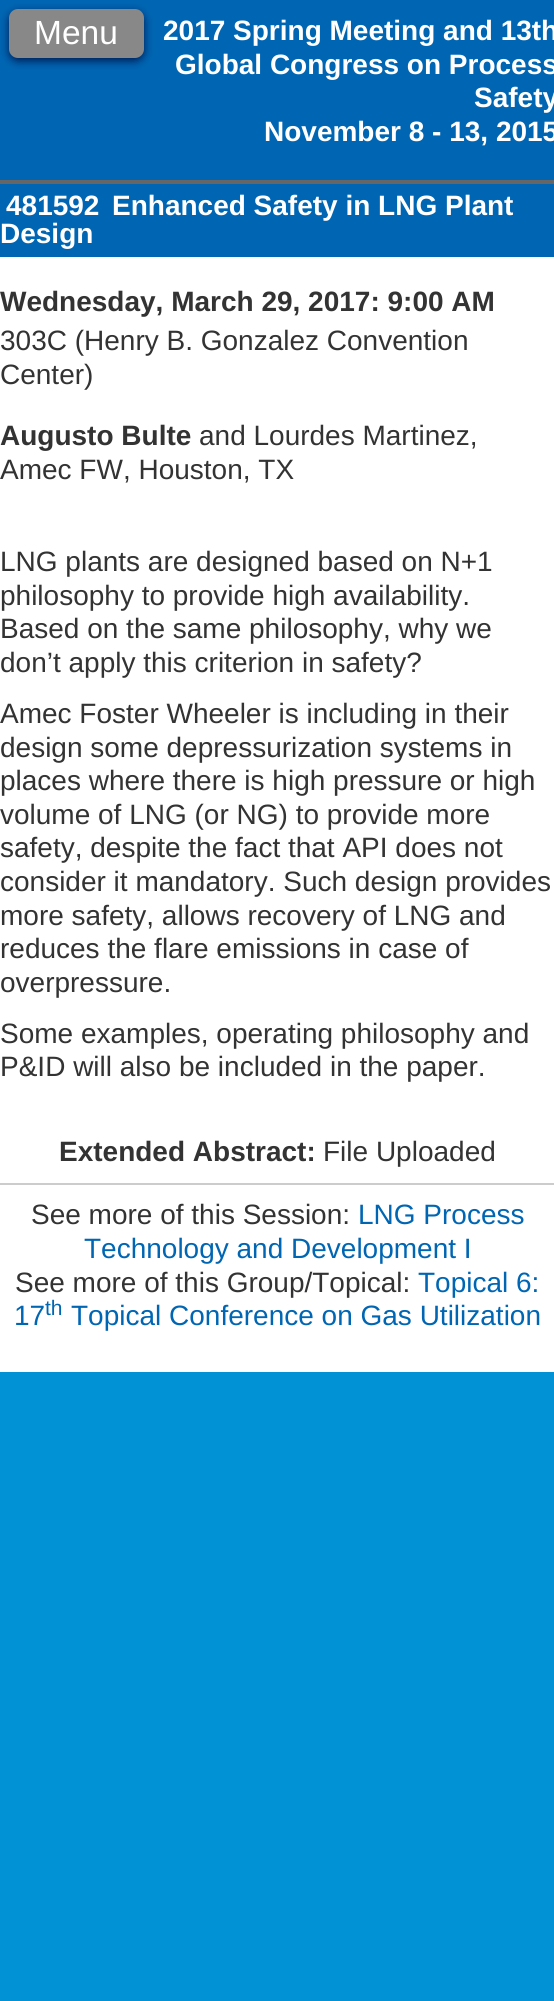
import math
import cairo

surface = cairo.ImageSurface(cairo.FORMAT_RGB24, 554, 2001)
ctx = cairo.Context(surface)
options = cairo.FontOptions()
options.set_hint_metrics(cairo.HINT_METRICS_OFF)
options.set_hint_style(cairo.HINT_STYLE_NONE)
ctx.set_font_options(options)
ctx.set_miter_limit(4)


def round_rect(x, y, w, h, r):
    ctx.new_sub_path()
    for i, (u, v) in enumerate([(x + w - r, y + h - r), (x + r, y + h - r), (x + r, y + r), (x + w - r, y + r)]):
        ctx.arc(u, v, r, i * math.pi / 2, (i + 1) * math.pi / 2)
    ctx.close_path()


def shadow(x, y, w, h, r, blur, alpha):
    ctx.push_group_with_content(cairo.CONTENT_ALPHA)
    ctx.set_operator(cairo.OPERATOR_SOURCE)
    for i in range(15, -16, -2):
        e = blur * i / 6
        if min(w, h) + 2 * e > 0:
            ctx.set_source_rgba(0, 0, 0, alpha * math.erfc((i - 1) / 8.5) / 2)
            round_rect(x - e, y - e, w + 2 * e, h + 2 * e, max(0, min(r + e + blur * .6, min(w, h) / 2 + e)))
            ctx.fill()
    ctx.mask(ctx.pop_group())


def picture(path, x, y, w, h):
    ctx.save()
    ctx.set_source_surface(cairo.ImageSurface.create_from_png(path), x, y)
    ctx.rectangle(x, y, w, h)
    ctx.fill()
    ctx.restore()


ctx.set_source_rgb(1, 1, 1)
ctx.paint()
picture("img1.png", 0, 1372, 554, 629)
ctx.set_source_rgb(0, 0.4, 0.702)
ctx.rectangle(0, 0, 554, 180)
ctx.fill()
ctx.set_source_rgb(0.4, 0.4, 0.4)
ctx.rectangle(0, 180, 554, 4)
ctx.fill()
ctx.set_source_rgb(0, 0, 0.2)
shadow(9, 12, 135, 49, 9, 4.5, 0.75)
ctx.set_source_rgb(0.533, 0.533, 0.533)
round_rect(9, 9, 135, 49, 9)
ctx.fill()
ctx.select_font_face("Liberation Sans")
ctx.set_font_size(33.5)
ctx.set_source_rgb(1, 1, 1)
ctx.move_to(34, 44)
ctx.show_text("Menu")
ctx.select_font_face("Liberation Sans", cairo.FONT_SLANT_NORMAL, cairo.FONT_WEIGHT_BOLD)
ctx.set_font_size(28)
ctx.move_to(163, 40)
ctx.show_text("2017 Spring Meeting and 13th")
ctx.move_to(175, 74)
ctx.show_text("Global Congress on Process")
ctx.move_to(474, 107)
ctx.show_text("Safety")
ctx.move_to(264, 141)
ctx.show_text("November 8 - 13, 2015")
ctx.set_source_rgb(0, 0.4, 0.702)
ctx.rectangle(0, 184, 554, 73)
ctx.fill()
ctx.set_source_rgb(1, 1, 1)
ctx.move_to(6, 215)
ctx.show_text("481592")
ctx.move_to(112, 215)
ctx.show_text("Enhanced Safety in LNG Plant")
ctx.move_to(0, 243)
ctx.show_text("Design")
ctx.set_source_rgb(0.2, 0.2, 0.2)
ctx.move_to(0, 311)
ctx.show_text("Wednesday, March 29, 2017: 9:00 AM")
ctx.select_font_face("Liberation Sans")
ctx.move_to(0, 350)
ctx.show_text("303C (Henry B. Gonzalez Convention")
ctx.move_to(0, 384)
ctx.show_text("Center)")
ctx.select_font_face("Liberation Sans", cairo.FONT_SLANT_NORMAL, cairo.FONT_WEIGHT_BOLD)
ctx.move_to(0, 445)
ctx.show_text("Augusto Bulte")
ctx.select_font_face("Liberation Sans")
ctx.move_to(199, 445)
ctx.show_text("and Lourdes Martinez,")
ctx.move_to(0, 479)
ctx.show_text("Amec FW, Houston, TX")
ctx.move_to(0, 571)
ctx.show_text("LNG plants are designed based on N+1")
ctx.move_to(0, 605)
ctx.show_text("philosophy to provide high availability.")
ctx.move_to(0, 638)
ctx.show_text("Based on the same philosophy, why we")
ctx.move_to(0, 672)
ctx.show_text("don’t apply this criterion in safety?")
ctx.move_to(0, 723)
ctx.show_text("Amec Foster Wheeler is including in their")
ctx.move_to(0, 757)
ctx.show_text("design some depressurization systems in")
ctx.move_to(0, 790)
ctx.show_text("places where there is high pressure or high")
ctx.move_to(0, 824)
ctx.show_text("volume of LNG (or NG) to provide more")
ctx.move_to(0, 857)
ctx.show_text("safety, despite the fact that API does not")
ctx.move_to(0, 891)
ctx.show_text("consider it mandatory. Such design provides")
ctx.move_to(0, 925)
ctx.show_text("more safety, allows recovery of LNG and")
ctx.move_to(0, 958)
ctx.show_text("reduces the flare emissions in case of")
ctx.move_to(0, 992)
ctx.show_text("overpressure.")
ctx.move_to(0, 1043)
ctx.show_text("Some examples, operating philosophy and")
ctx.move_to(0, 1076)
ctx.show_text("P&ID will also be included in the paper.")
ctx.select_font_face("Liberation Sans", cairo.FONT_SLANT_NORMAL, cairo.FONT_WEIGHT_BOLD)
ctx.move_to(59, 1161)
ctx.show_text("Extended Abstract:")
ctx.select_font_face("Liberation Sans")
ctx.move_to(323, 1161)
ctx.show_text("File Uploaded")
ctx.set_source_rgb(0.8, 0.8, 0.8)
ctx.rectangle(0, 1183, 554, 2)
ctx.fill()
ctx.set_source_rgb(0.2, 0.2, 0.2)
ctx.move_to(31, 1224)
ctx.show_text("See more of this Session:")
ctx.set_source_rgb(0, 0.4, 0.702)
ctx.move_to(358, 1224)
ctx.show_text("LNG Process")
ctx.move_to(84, 1258)
ctx.show_text("Technology and Development I")
ctx.set_source_rgb(0.2, 0.2, 0.2)
ctx.move_to(15, 1292)
ctx.show_text("See more of this Group/Topical:")
ctx.set_source_rgb(0, 0.4, 0.702)
ctx.move_to(418, 1292)
ctx.show_text("Topical 6:")
ctx.move_to(14, 1325)
ctx.show_text("17")
ctx.set_font_size(21)
ctx.move_to(45, 1315)
ctx.show_text("th")
ctx.set_font_size(28)
ctx.move_to(71, 1325)
ctx.show_text("Topical Conference on Gas Utilization")
surface.write_to_png("page.png")
